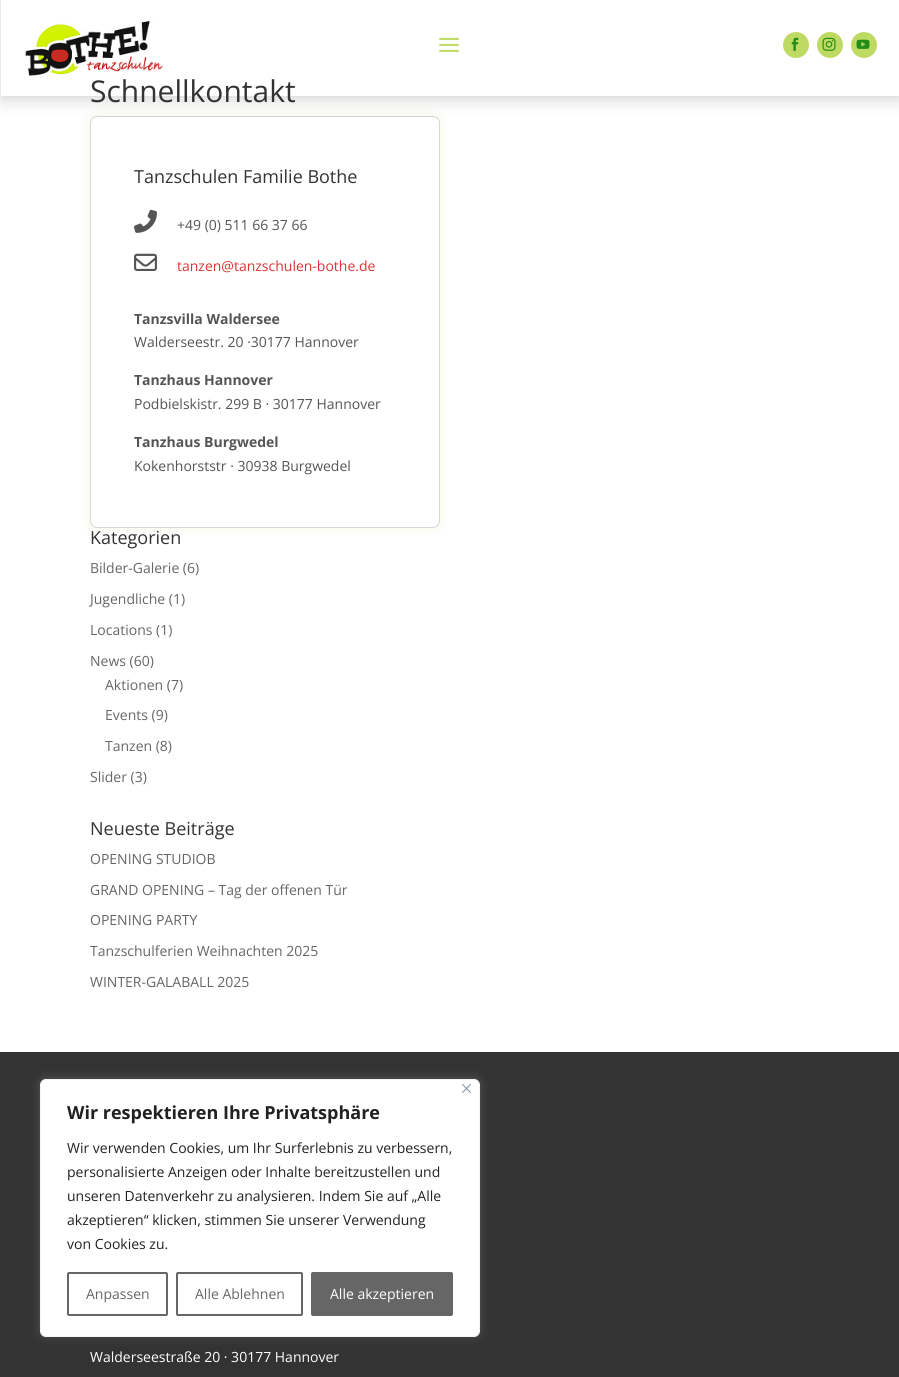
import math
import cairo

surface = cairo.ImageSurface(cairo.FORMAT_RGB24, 899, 1377)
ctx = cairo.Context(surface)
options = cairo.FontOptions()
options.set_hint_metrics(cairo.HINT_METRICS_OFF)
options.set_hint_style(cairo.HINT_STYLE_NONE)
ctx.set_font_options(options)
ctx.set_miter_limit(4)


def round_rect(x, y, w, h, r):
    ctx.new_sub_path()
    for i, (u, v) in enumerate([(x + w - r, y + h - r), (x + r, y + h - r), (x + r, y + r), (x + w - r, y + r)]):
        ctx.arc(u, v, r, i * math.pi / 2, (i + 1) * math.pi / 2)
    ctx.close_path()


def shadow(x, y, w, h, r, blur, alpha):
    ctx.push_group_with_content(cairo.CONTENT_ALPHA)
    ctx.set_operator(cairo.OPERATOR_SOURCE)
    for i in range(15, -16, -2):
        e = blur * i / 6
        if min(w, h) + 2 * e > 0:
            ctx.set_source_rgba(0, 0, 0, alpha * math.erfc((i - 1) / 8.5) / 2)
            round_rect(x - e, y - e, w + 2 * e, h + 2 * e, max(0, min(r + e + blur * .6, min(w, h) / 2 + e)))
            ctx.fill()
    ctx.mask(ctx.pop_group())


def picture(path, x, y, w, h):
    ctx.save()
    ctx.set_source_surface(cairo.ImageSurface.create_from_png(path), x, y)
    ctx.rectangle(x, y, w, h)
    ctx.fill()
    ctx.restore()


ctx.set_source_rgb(1, 1, 1)
ctx.paint()
ctx.set_source_rgb(0.749, 0.855, 0.384)
shadow(90, 116, 350, 412, 7, 6, 0.18)
ctx.set_source_rgb(1, 1, 1)
round_rect(90.5, 116.5, 349, 411, 6.5)
ctx.fill_preserve()
ctx.set_source_rgb(0.839, 0.839, 0.839)
ctx.set_line_width(1)
ctx.stroke()
ctx.save()
ctx.set_fill_rule(cairo.FILL_RULE_EVEN_ODD)
ctx.new_path()
ctx.move_to(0, 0)
ctx.line_to(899, 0)
ctx.line_to(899, 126)
ctx.line_to(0, 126)
ctx.close_path()
ctx.move_to(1, 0)
ctx.line_to(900, 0)
ctx.line_to(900, 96)
ctx.line_to(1, 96)
ctx.close_path()
ctx.clip()
ctx.set_source_rgb(0, 0, 0)
shadow(1, 2, 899, 96, 0, 9, 0.2)
ctx.restore()
picture("img1.png", 25, 18, 138, 58)
picture("img2.png", 439, 37, 20, 15)
ctx.set_source_rgb(0.749, 0.855, 0.384)
ctx.arc(796, 45, 13, 0, 2 * math.pi)
ctx.fill()
picture("img3.png", 791, 37, 8, 14)
ctx.arc(830, 45, 13, 0, 2 * math.pi)
ctx.fill()
picture("img4.png", 822, 37, 14, 14)
ctx.arc(864, 45, 13, 0, 2 * math.pi)
ctx.fill()
picture("img5.png", 856, 39, 14, 10)
ctx.select_font_face("Open Sans")
ctx.set_font_size(30)
ctx.set_source_rgb(0.2, 0.2, 0.2)
ctx.move_to(90, 102)
ctx.show_text("Schnellkontakt")
ctx.set_font_size(18)
ctx.move_to(134, 183)
ctx.show_text("Tanzschulen Familie Bothe")
picture("img6.png", 134, 209, 23, 24)
ctx.set_font_size(14)
ctx.set_source_rgb(0.333, 0.333, 0.333)
ctx.move_to(177, 230)
ctx.show_text("+49 (0) 511 66 37 66")
picture("img7.png", 134, 253, 23, 18)
ctx.set_source_rgb(0.867, 0.2, 0.2)
ctx.move_to(177, 271)
ctx.show_text("tanzen@tanzschulen-bothe.de")
ctx.select_font_face("Open Sans", cairo.FONT_SLANT_NORMAL, cairo.FONT_WEIGHT_BOLD)
ctx.set_source_rgb(0.333, 0.333, 0.333)
ctx.move_to(134, 324)
ctx.show_text("Tanzsvilla Waldersee")
ctx.select_font_face("Open Sans")
ctx.move_to(134, 347)
ctx.show_text("Walderseestr. 20 ·30177 Hannover")
ctx.select_font_face("Open Sans", cairo.FONT_SLANT_NORMAL, cairo.FONT_WEIGHT_BOLD)
ctx.move_to(134, 385)
ctx.show_text("Tanzhaus Hannover")
ctx.select_font_face("Open Sans")
ctx.move_to(134, 409)
ctx.show_text("Podbielskistr. 299 B · 30177 Hannover")
ctx.select_font_face("Open Sans", cairo.FONT_SLANT_NORMAL, cairo.FONT_WEIGHT_BOLD)
ctx.move_to(134, 447)
ctx.show_text("Tanzhaus Burgwedel")
ctx.select_font_face("Open Sans")
ctx.move_to(134, 471)
ctx.show_text("Kokenhorststr · 30938 Burgwedel")
ctx.set_font_size(18)
ctx.set_source_rgb(0.2, 0.2, 0.2)
ctx.move_to(90, 544)
ctx.show_text("Kategorien")
ctx.set_font_size(14)
ctx.set_source_rgb(0.4, 0.4, 0.4)
ctx.move_to(90, 573)
ctx.show_text("Bilder-Galerie (6)")
ctx.move_to(90, 604)
ctx.show_text("Jugendliche (1)")
ctx.move_to(90, 635)
ctx.show_text("Locations (1)")
ctx.move_to(90, 666)
ctx.show_text("News (60)")
ctx.move_to(105, 690)
ctx.show_text("Aktionen (7)")
ctx.move_to(105, 720)
ctx.show_text("Events (9)")
ctx.move_to(105, 751)
ctx.show_text("Tanzen (8)")
ctx.move_to(90, 782)
ctx.show_text("Slider (3)")
ctx.set_font_size(18)
ctx.set_source_rgb(0.2, 0.2, 0.2)
ctx.move_to(90, 835)
ctx.show_text("Neueste Beiträge")
ctx.set_font_size(14)
ctx.set_source_rgb(0.4, 0.4, 0.4)
ctx.move_to(90, 864)
ctx.show_text("OPENING STUDIOB")
ctx.move_to(90, 895)
ctx.show_text("GRAND OPENING – Tag der offenen Tür")
ctx.move_to(90, 925)
ctx.show_text("OPENING PARTY")
ctx.move_to(90, 956)
ctx.show_text("Tanzschulferien Weihnachten 2025")
ctx.move_to(90, 987)
ctx.show_text("WINTER-GALABALL 2025")
ctx.set_source_rgb(0.2, 0.2, 0.2)
ctx.rectangle(0, 1052, 899, 325)
ctx.fill()
ctx.set_source_rgb(1, 1, 1)
ctx.move_to(90, 1362)
ctx.show_text("Walderseestraße 20 · 30177 Hannover")
ctx.set_source_rgb(0.675, 0.671, 0.671)
shadow(40, 1078, 440, 258, 6, 5, 0.3)
ctx.set_source_rgb(1, 1, 1)
round_rect(40.5, 1079.5, 439, 257, 5.5)
ctx.fill_preserve()
ctx.set_source_rgb(0.957, 0.957, 0.957)
ctx.stroke()
picture("img8.png", 462, 1084, 9, 9)
ctx.select_font_face("Open Sans", cairo.FONT_SLANT_NORMAL, cairo.FONT_WEIGHT_BOLD)
ctx.set_font_size(18)
ctx.set_source_rgb(0.129, 0.129, 0.129)
ctx.move_to(67, 1119)
ctx.show_text("Wir respektieren Ihre Privatsphäre")
ctx.select_font_face("Open Sans")
ctx.set_font_size(14)
ctx.move_to(67, 1153)
ctx.show_text("Wir verwenden Cookies, um Ihr Surferlebnis zu verbessern,")
ctx.move_to(67, 1177)
ctx.show_text("personalisierte Anzeigen oder Inhalte bereitzustellen und")
ctx.move_to(67, 1201)
ctx.show_text("unseren Datenverkehr zu analysieren. Indem Sie auf „Alle")
ctx.move_to(67, 1225)
ctx.show_text("akzeptieren“ klicken, stimmen Sie unserer Verwendung")
ctx.move_to(67, 1249)
ctx.show_text("von Cookies zu.")
round_rect(68, 1273, 99, 42, 1)
ctx.set_source_rgb(0.4, 0.4, 0.4)
ctx.set_line_width(2)
ctx.stroke()
ctx.move_to(86, 1299)
ctx.show_text("Anpassen")
round_rect(177, 1273, 125, 42, 1)
ctx.stroke()
ctx.move_to(195, 1299)
ctx.show_text("Alle Ablehnen")
round_rect(312, 1273, 140, 42, 1)
ctx.fill_preserve()
ctx.stroke()
ctx.set_source_rgb(1, 1, 1)
ctx.move_to(330, 1299)
ctx.show_text("Alle akzeptieren")
surface.write_to_png("page.png")
